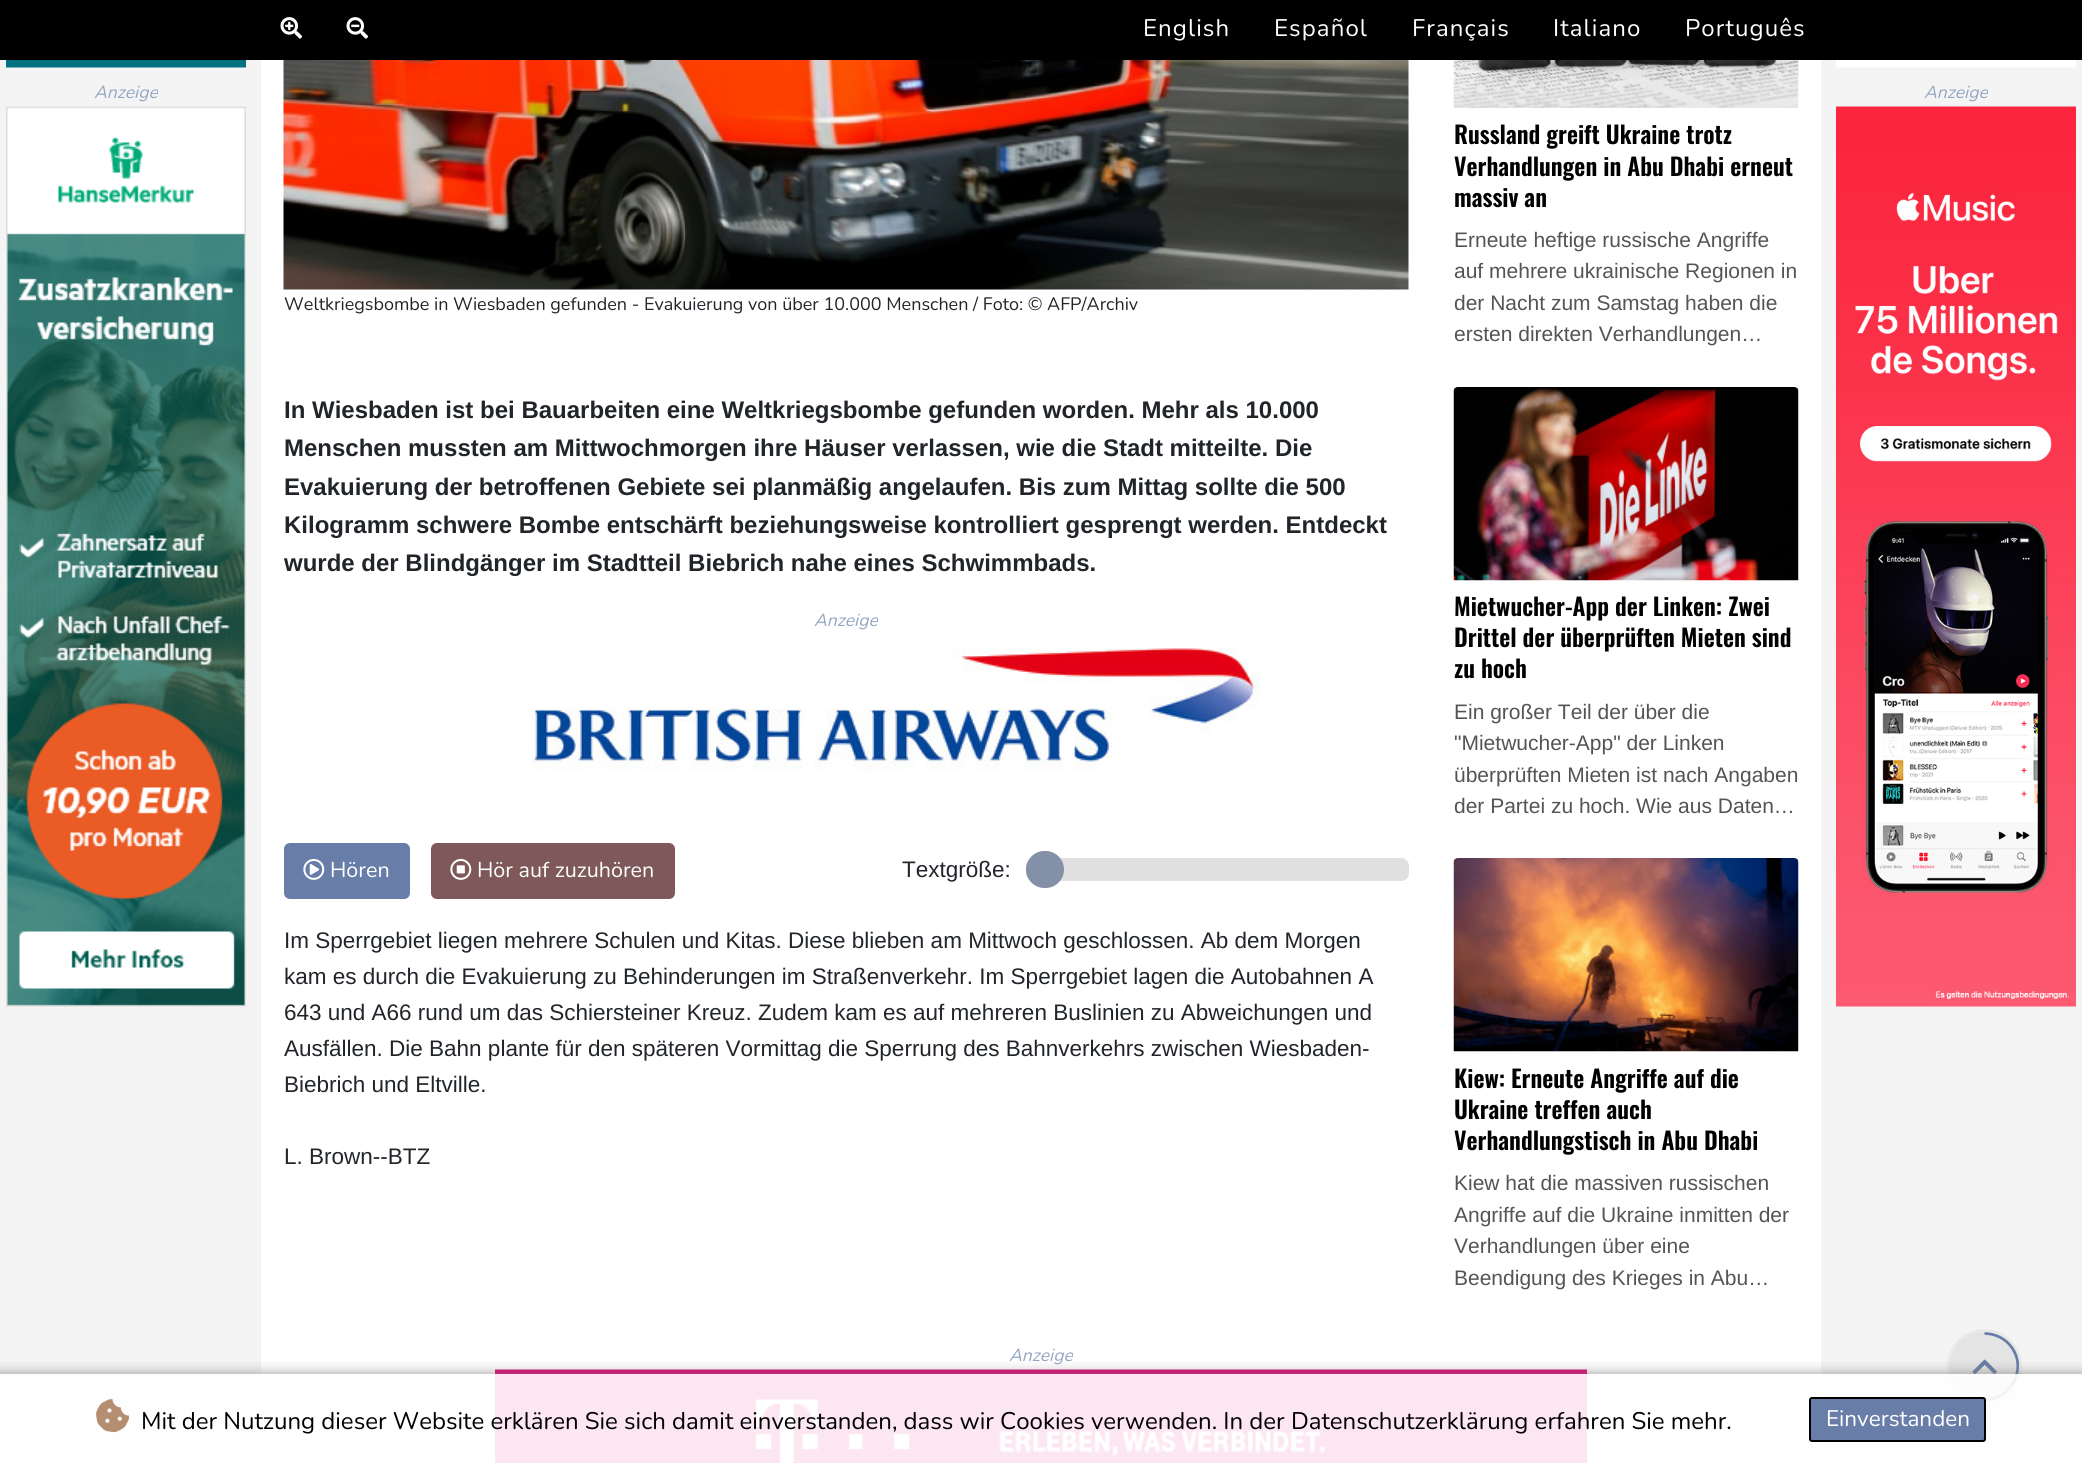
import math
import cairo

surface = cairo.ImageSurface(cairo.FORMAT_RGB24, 2082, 1463)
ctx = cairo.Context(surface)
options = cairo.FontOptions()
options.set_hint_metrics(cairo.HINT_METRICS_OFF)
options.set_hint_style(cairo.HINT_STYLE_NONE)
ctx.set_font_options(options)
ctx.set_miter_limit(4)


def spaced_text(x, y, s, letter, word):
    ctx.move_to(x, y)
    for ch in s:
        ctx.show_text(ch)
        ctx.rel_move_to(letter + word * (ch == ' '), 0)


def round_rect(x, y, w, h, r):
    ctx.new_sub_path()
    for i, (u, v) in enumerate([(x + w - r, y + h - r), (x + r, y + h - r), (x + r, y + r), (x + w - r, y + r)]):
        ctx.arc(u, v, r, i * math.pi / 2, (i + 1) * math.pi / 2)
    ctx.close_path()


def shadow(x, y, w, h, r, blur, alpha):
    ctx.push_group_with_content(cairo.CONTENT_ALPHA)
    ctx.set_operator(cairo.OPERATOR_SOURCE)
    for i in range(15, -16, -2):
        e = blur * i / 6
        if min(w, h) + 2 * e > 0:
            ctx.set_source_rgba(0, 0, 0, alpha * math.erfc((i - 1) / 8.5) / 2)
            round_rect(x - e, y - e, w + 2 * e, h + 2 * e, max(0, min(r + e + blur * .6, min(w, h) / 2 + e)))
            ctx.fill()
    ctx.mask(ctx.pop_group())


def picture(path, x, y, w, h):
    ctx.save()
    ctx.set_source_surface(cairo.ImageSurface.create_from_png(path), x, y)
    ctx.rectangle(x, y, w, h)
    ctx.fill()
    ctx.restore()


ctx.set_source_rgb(0.957, 0.957, 0.957)
ctx.paint()
ctx.set_source_rgb(0, 0, 0)
ctx.rectangle(0, 0, 2082, 60)
ctx.fill()
picture("img1.png", 280, 17, 23, 22)
picture("img2.png", 346, 17, 23, 22)
ctx.select_font_face("Nunito ExtraLight")
ctx.set_font_size(24)
ctx.set_source_rgb(1, 1, 1)
spaced_text(1143, 36, "English", 1.1, 0)
spaced_text(1274, 36, "Español", 1.1, 0)
spaced_text(1412, 36, "Français", 1.1, 0)
spaced_text(1553, 36, "Italiano", 1.1, 0)
spaced_text(1685, 36, "Português", 1.1, 0)
ctx.rectangle(261, 60, 1560, 1403)
ctx.fill()
picture("img3.png", 6, 60, 240, 8)
ctx.select_font_face("Nunito ExtraLight", cairo.FONT_SLANT_ITALIC)
ctx.set_font_size(17.5)
ctx.set_source_rgb(0.573, 0.647, 0.765)
ctx.move_to(94, 98)
ctx.show_text("Anzeige")
picture("img4.png", 6, 106, 240, 901)
picture("img5.png", 1836, 60, 240, 8)
ctx.move_to(1924, 98)
ctx.show_text("Anzeige")
picture("img6.png", 1836, 106, 240, 901)
picture("img7.png", 283, 60, 1126, 230)
ctx.select_font_face("Nunito ExtraLight")
ctx.set_font_size(18)
ctx.set_source_rgb(0.129, 0.145, 0.161)
ctx.move_to(284, 310)
ctx.show_text("Weltkriegsbombe in Wiesbaden gefunden - Evakuierung von über 10.000 Menschen / Foto: © AFP/Archiv")
ctx.select_font_face("Liberation Sans", cairo.FONT_SLANT_NORMAL, cairo.FONT_WEIGHT_BOLD)
ctx.set_font_size(24)
ctx.move_to(284, 418)
ctx.show_text("In Wiesbaden ist bei Bauarbeiten eine Weltkriegsbombe gefunden worden. Mehr als 10.000")
ctx.move_to(284, 456)
ctx.show_text("Menschen mussten am Mittwochmorgen ihre Häuser verlassen, wie die Stadt mitteilte. Die")
ctx.move_to(284, 495)
ctx.show_text("Evakuierung der betroffenen Gebiete sei planmäßig angelaufen. Bis zum Mittag sollte die 500")
ctx.move_to(284, 533)
ctx.show_text("Kilogramm schwere Bombe entschärft beziehungsweise kontrolliert gesprengt werden. Entdeckt")
ctx.move_to(284, 571)
ctx.show_text("wurde der Blindgänger im Stadtteil Biebrich nahe eines Schwimmbads.")
ctx.select_font_face("Nunito ExtraLight", cairo.FONT_SLANT_ITALIC)
ctx.set_font_size(17.5)
ctx.set_source_rgb(0.573, 0.647, 0.765)
ctx.move_to(814, 626)
ctx.show_text("Anzeige")
picture("img8.png", 531, 647, 730, 124)
ctx.set_source_rgb(0.408, 0.49, 0.659)
round_rect(284, 843, 126, 56, 6)
ctx.fill()
picture("img9.png", 303, 858, 22, 22)
ctx.select_font_face("Nunito ExtraLight")
ctx.set_font_size(21.5)
ctx.set_source_rgb(1, 1, 1)
ctx.move_to(330, 877)
ctx.show_text("Hören")
ctx.set_source_rgb(0.498, 0.349, 0.349)
round_rect(431, 843, 244, 56, 6)
ctx.fill()
picture("img10.png", 450, 858, 22, 22)
ctx.set_source_rgb(1, 1, 1)
ctx.move_to(477, 877)
ctx.show_text("Hör auf zuzuhören")
ctx.select_font_face("Liberation Sans")
ctx.set_font_size(22.5)
ctx.set_source_rgb(0.129, 0.145, 0.161)
ctx.move_to(902, 877)
ctx.show_text("Textgröße:")
ctx.set_source_rgb(0.878, 0.878, 0.878)
round_rect(1026, 858, 383, 23, 8)
ctx.fill()
ctx.set_source_rgb(0.518, 0.565, 0.659)
round_rect(1026, 851, 38, 37, 18.5)
ctx.fill()
ctx.set_source_rgb(0.129, 0.145, 0.161)
ctx.move_to(284, 948)
ctx.show_text("Im Sperrgebiet liegen mehrere Schulen und Kitas. Diese blieben am Mittwoch geschlossen. Ab dem Morgen")
ctx.move_to(284, 984)
ctx.show_text("kam es durch die Evakuierung zu Behinderungen im Straßenverkehr. Im Sperrgebiet lagen die Autobahnen A")
ctx.move_to(284, 1020)
ctx.show_text("643 und A66 rund um das Schiersteiner Kreuz. Zudem kam es auf mehreren Buslinien zu Abweichungen und")
ctx.move_to(284, 1056)
ctx.show_text("Ausfällen. Die Bahn plante für den späteren Vormittag die Sperrung des Bahnverkehrs zwischen Wiesbaden-")
ctx.move_to(284, 1092)
ctx.show_text("Biebrich und Eltville.")
ctx.move_to(284, 1164)
ctx.show_text("L. Brown--BTZ")
picture("img11.png", 1453, 60, 346, 48)
ctx.select_font_face("Oswald SemiBold")
ctx.set_font_size(24)
ctx.set_source_rgb(0, 0, 0)
ctx.move_to(1454, 144)
ctx.show_text("Russland greift Ukraine trotz")
ctx.move_to(1454, 176)
ctx.show_text("Verhandlungen in Abu Dhabi erneut")
ctx.move_to(1454, 207)
ctx.show_text("massiv an")
ctx.select_font_face("Liberation Sans")
ctx.set_font_size(21)
ctx.set_source_rgb(0.329, 0.329, 0.329)
ctx.move_to(1454, 247)
ctx.show_text("Erneute heftige russische Angriffe")
ctx.move_to(1454, 278)
ctx.show_text("auf mehrere ukrainische Regionen in")
ctx.move_to(1454, 310)
ctx.show_text("der Nacht zum Samstag haben die")
ctx.move_to(1454, 341)
ctx.show_text("ersten direkten Verhandlungen…")
picture("img12.png", 1453, 387, 346, 194)
ctx.select_font_face("Oswald SemiBold")
ctx.set_font_size(24)
ctx.set_source_rgb(0, 0, 0)
ctx.move_to(1454, 616)
ctx.show_text("Mietwucher-App der Linken: Zwei")
ctx.move_to(1454, 647)
ctx.show_text("Drittel der überprüften Mieten sind")
ctx.move_to(1454, 678)
ctx.show_text("zu hoch")
ctx.select_font_face("Liberation Sans")
ctx.set_font_size(21)
ctx.set_source_rgb(0.329, 0.329, 0.329)
ctx.move_to(1454, 719)
ctx.show_text("Ein großer Teil der über die")
ctx.move_to(1454, 750)
ctx.show_text("\"Mietwucher-App\" der Linken")
ctx.move_to(1454, 782)
ctx.show_text("überprüften Mieten ist nach Angaben")
ctx.move_to(1454, 813)
ctx.show_text("der Partei zu hoch. Wie aus Daten…")
picture("img13.png", 1453, 858, 346, 194)
ctx.select_font_face("Oswald SemiBold")
ctx.set_font_size(24)
ctx.set_source_rgb(0, 0, 0)
ctx.move_to(1454, 1088)
ctx.show_text("Kiew: Erneute Angriffe auf die")
ctx.move_to(1454, 1119)
ctx.show_text("Ukraine treffen auch")
ctx.move_to(1454, 1150)
ctx.show_text("Verhandlungstisch in Abu Dhabi")
ctx.select_font_face("Liberation Sans")
ctx.set_font_size(21)
ctx.set_source_rgb(0.329, 0.329, 0.329)
ctx.move_to(1454, 1190)
ctx.show_text("Kiew hat die massiven russischen")
ctx.move_to(1454, 1222)
ctx.show_text("Angriffe auf die Ukraine inmitten der")
ctx.move_to(1454, 1253)
ctx.show_text("Verhandlungen über eine")
ctx.move_to(1454, 1285)
ctx.show_text("Beendigung des Krieges in Abu…")
ctx.set_source_rgb(0.894, 0.894, 0.894)
ctx.new_path()
ctx.arc(1984.5, 1366.5, 37.5, 0, 2 * math.pi)
ctx.fill()
ctx.arc(1984.5, 1366.5, 36, 0, 2 * math.pi)
ctx.set_source_rgba(1, 1, 1, 0.2)
ctx.set_line_width(3)
ctx.stroke()
ctx.save()
ctx.rectangle(1950, 1332, 69, 69)
ctx.clip()
ctx.new_path()
ctx.move_to(1984.5, 1333.5)
ctx.curve_to(1993, 1333.5, 2002, 1337, 2008, 1343)
ctx.curve_to(2034, 1369.5, 2003.5, 1411.5, 1971, 1397)
ctx.set_source_rgb(0.408, 0.49, 0.651)
ctx.set_line_width(2.7)
ctx.stroke()
ctx.restore()
picture("img14.png", 1972, 1359, 25, 16)
ctx.select_font_face("Nunito ExtraLight", cairo.FONT_SLANT_ITALIC)
ctx.set_font_size(17.5)
ctx.set_source_rgb(0.573, 0.647, 0.765)
ctx.move_to(1009, 1361)
ctx.show_text("Anzeige")
picture("img15.png", 495, 1369, 1092, 94)
ctx.save()
ctx.rectangle(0, 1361, 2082, 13)
ctx.clip()
ctx.set_source_rgb(0.475, 0.475, 0.475)
shadow(-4, 1376, 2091, 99, 0, 7.5, 1)
ctx.restore()
ctx.set_source_rgba(1, 1, 1, 0.9)
ctx.rectangle(0, 1374, 2082, 89)
ctx.fill()
picture("img16.png", 96, 1399, 34, 34)
ctx.select_font_face("Nunito ExtraLight")
ctx.set_font_size(24)
ctx.set_source_rgb(0, 0, 0)
ctx.move_to(141, 1429)
ctx.show_text("Mit der Nutzung dieser Website erklären Sie sich damit einverstanden, dass wir Cookies verwenden. In der Datenschutzerklärung erfahren Sie mehr.")
ctx.set_source_rgb(0.408, 0.49, 0.655)
round_rect(1810, 1398, 175, 43, 2)
ctx.fill_preserve()
ctx.set_source_rgb(0, 0, 0)
ctx.set_line_width(2)
ctx.stroke()
ctx.set_font_size(22.5)
ctx.set_source_rgb(1, 1, 1)
ctx.move_to(1826, 1426)
ctx.show_text("Einverstanden")
surface.write_to_png("page.png")
